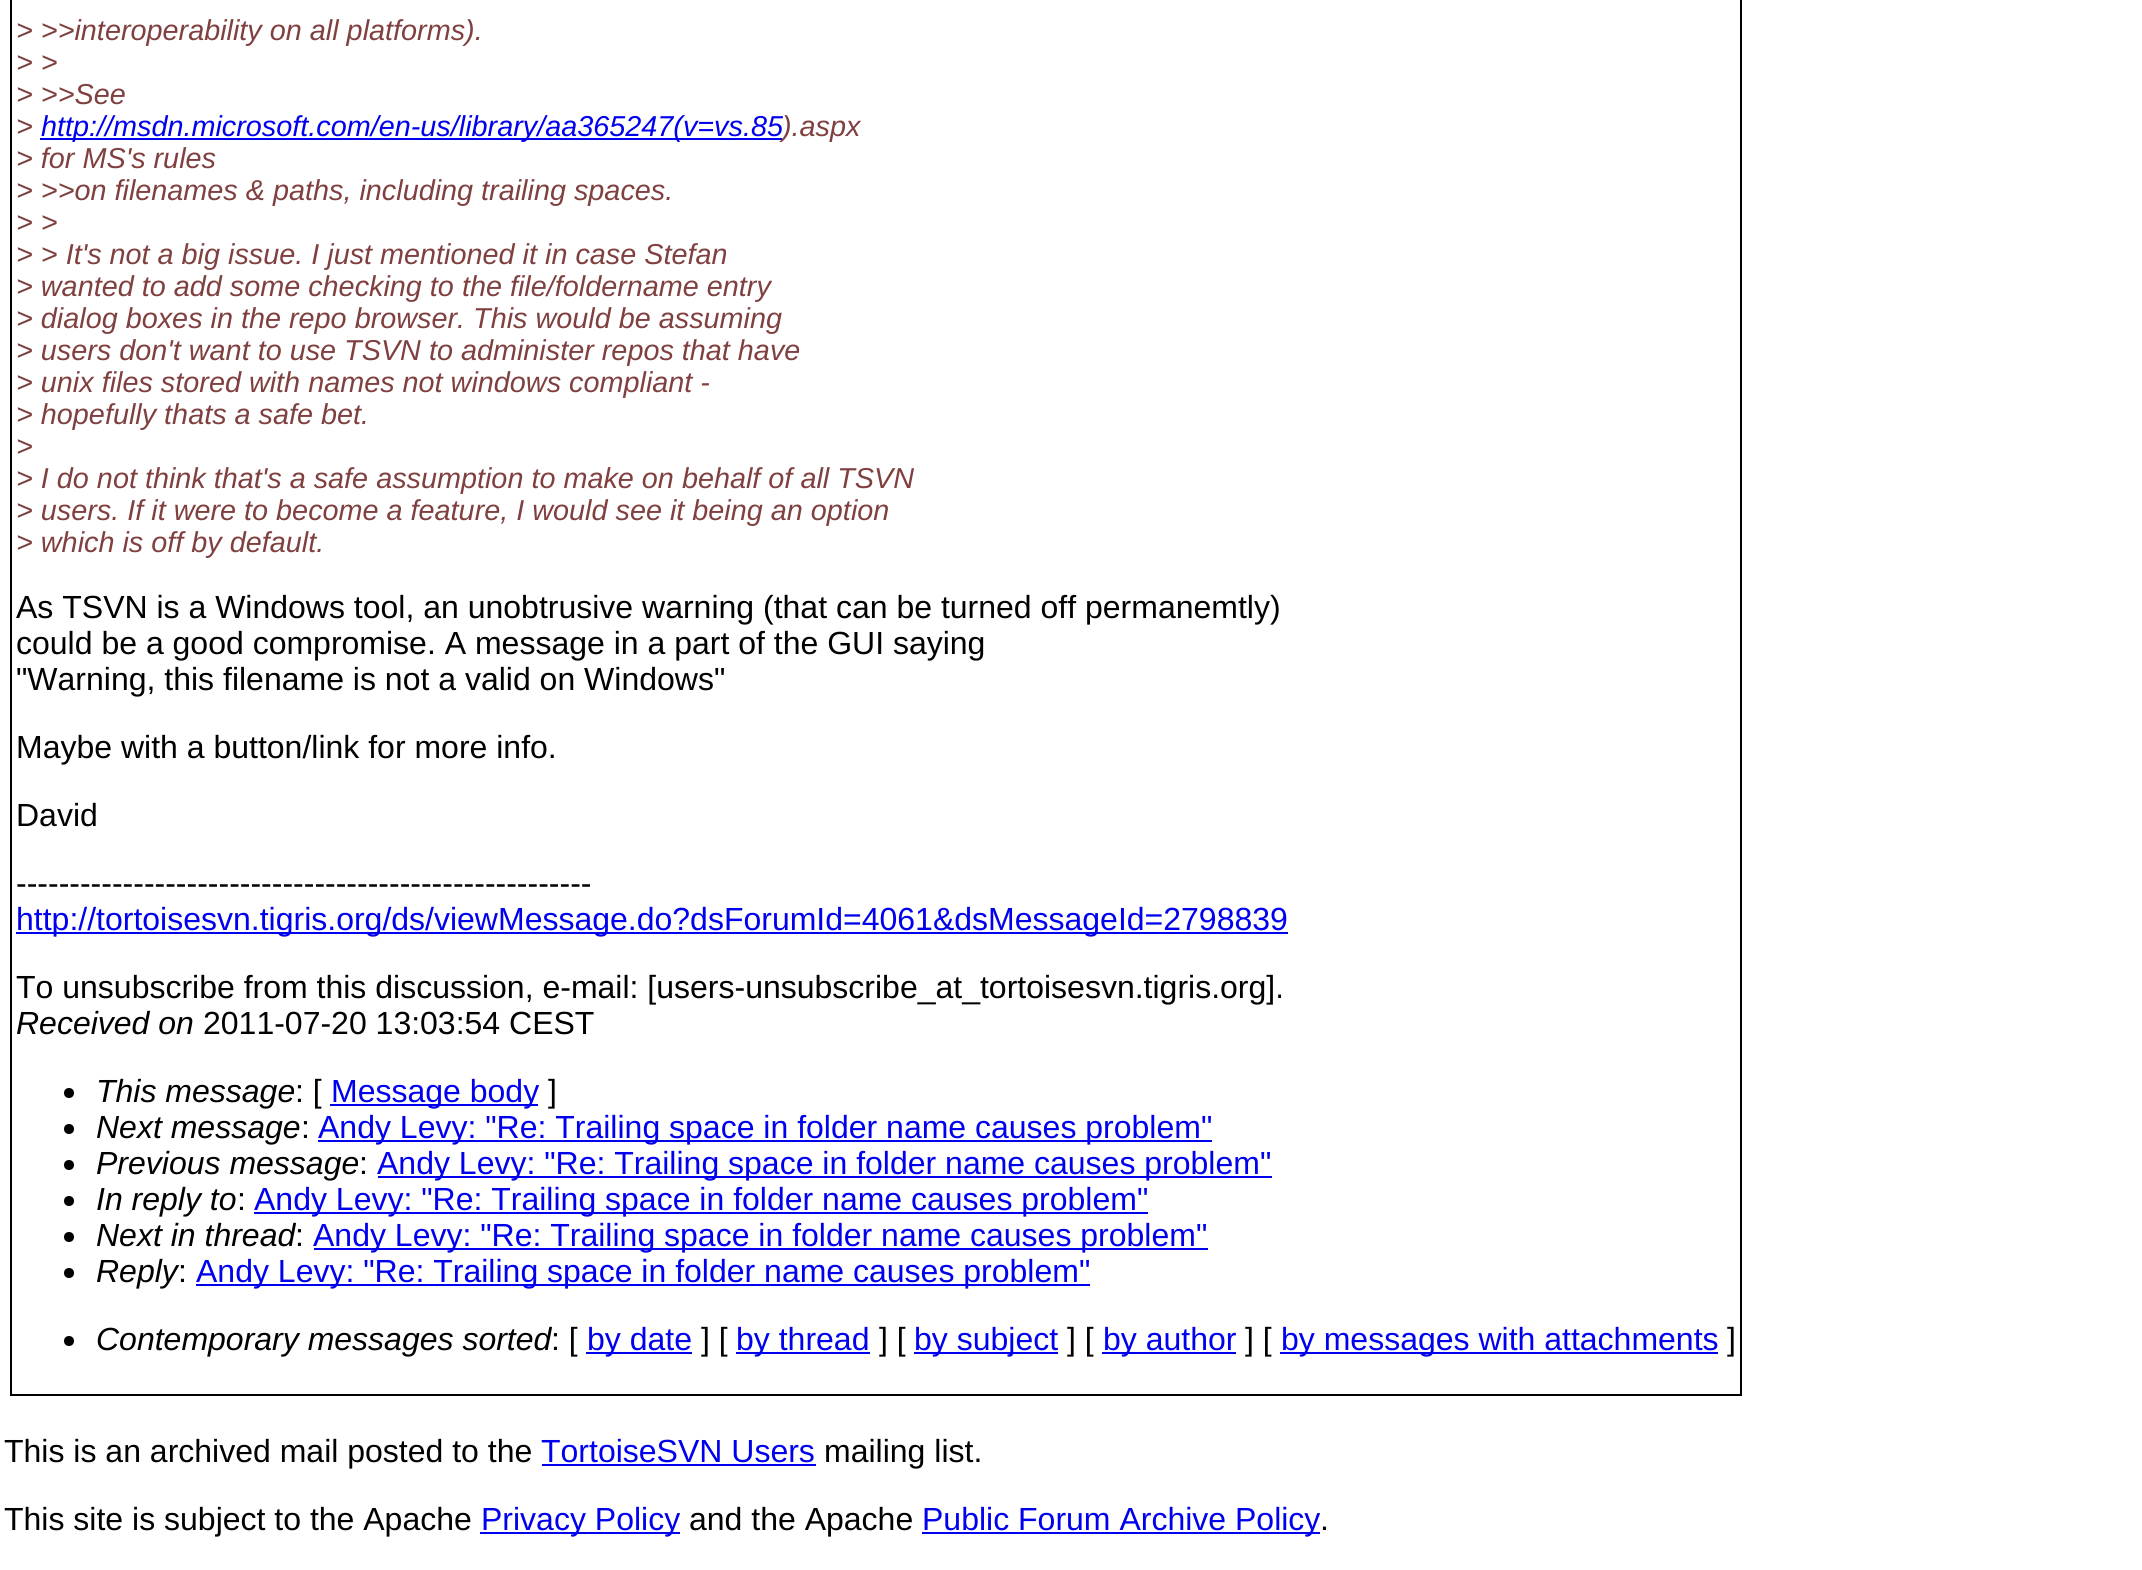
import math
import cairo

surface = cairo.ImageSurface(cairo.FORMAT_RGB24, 2142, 1570)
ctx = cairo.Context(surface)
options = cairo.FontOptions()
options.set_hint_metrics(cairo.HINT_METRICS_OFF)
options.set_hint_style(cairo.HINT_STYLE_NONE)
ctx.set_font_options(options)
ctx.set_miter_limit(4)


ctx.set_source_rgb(1, 1, 1)
ctx.paint()
ctx.rectangle(11, -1, 1730, 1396)
ctx.set_source_rgb(0, 0, 0)
ctx.stroke()
ctx.select_font_face("Liberation Sans", cairo.FONT_SLANT_ITALIC)
ctx.set_font_size(28.8)
ctx.set_source_rgb(0.502, 0.251, 0.251)
ctx.move_to(16, 40)
ctx.show_text("> >>interoperability on all platforms).")
ctx.move_to(16, 72)
ctx.show_text("> >")
ctx.move_to(16, 104)
ctx.show_text("> >>See")
ctx.move_to(16, 136)
ctx.show_text(">")
ctx.set_source_rgb(0, 0, 0.933)
ctx.rectangle(40, 138, 742, 2)
ctx.fill()
ctx.move_to(41, 136)
ctx.show_text("http://msdn.microsoft.com/en-us/library/aa365247(v=vs.85")
ctx.set_source_rgb(0.502, 0.251, 0.251)
ctx.move_to(782, 136)
ctx.show_text(").aspx")
ctx.move_to(16, 168)
ctx.show_text("> for MS's rules")
ctx.move_to(16, 200)
ctx.show_text("> >>on filenames & paths, including trailing spaces.")
ctx.move_to(16, 232)
ctx.show_text("> >")
ctx.move_to(16, 264)
ctx.show_text("> > It's not a big issue. I just mentioned it in case Stefan")
ctx.move_to(16, 296)
ctx.show_text("> wanted to add some checking to the file/foldername entry")
ctx.move_to(16, 328)
ctx.show_text("> dialog boxes in the repo browser. This would be assuming")
ctx.move_to(16, 360)
ctx.show_text("> users don't want to use TSVN to administer repos that have")
ctx.move_to(16, 392)
ctx.show_text("> unix files stored with names not windows compliant -")
ctx.move_to(16, 424)
ctx.show_text("> hopefully thats a safe bet.")
ctx.move_to(16, 456)
ctx.show_text(">")
ctx.move_to(16, 488)
ctx.show_text("> I do not think that's a safe assumption to make on behalf of all TSVN")
ctx.move_to(16, 520)
ctx.show_text("> users. If it were to become a feature, I would see it being an option")
ctx.move_to(16, 552)
ctx.show_text("> which is off by default.")
ctx.select_font_face("Liberation Sans")
ctx.set_font_size(32)
ctx.set_source_rgb(0, 0, 0)
ctx.move_to(16, 618)
ctx.show_text("As TSVN is a Windows tool, an unobtrusive warning (that can be turned off permanemtly)")
ctx.move_to(16, 654)
ctx.show_text("could be a good compromise. A message in a part of the GUI saying")
ctx.move_to(16, 690)
ctx.show_text("\"Warning, this filename is not a valid on Windows\"")
ctx.move_to(16, 758)
ctx.show_text("Maybe with a button/link for more info.")
ctx.move_to(16, 826)
ctx.show_text("David")
ctx.move_to(16, 894)
ctx.show_text("------------------------------------------------------")
ctx.set_source_rgb(0, 0, 0.933)
ctx.rectangle(16, 932, 1272, 2)
ctx.fill()
ctx.move_to(16, 930)
ctx.show_text("http://tortoisesvn.tigris.org/ds/viewMessage.do?dsForumId=4061&dsMessageId=2798839")
ctx.set_source_rgb(0, 0, 0)
ctx.move_to(16, 998)
ctx.show_text("To unsubscribe from this discussion, e-mail: [users-unsubscribe_at_tortoisesvn.tigris.org].")
ctx.select_font_face("Liberation Sans", cairo.FONT_SLANT_ITALIC)
ctx.move_to(16, 1034)
ctx.show_text("Received on")
ctx.select_font_face("Liberation Sans")
ctx.move_to(203, 1034)
ctx.show_text("2011-07-20 13:03:54 CEST")
ctx.new_path()
ctx.arc(69, 1093, 5, 0, 2 * math.pi)
ctx.fill()
ctx.select_font_face("Liberation Sans", cairo.FONT_SLANT_ITALIC)
ctx.move_to(96, 1102)
ctx.show_text("This message")
ctx.select_font_face("Liberation Sans")
ctx.move_to(295, 1102)
ctx.show_text(": [")
ctx.set_source_rgb(0, 0, 0.933)
ctx.rectangle(330, 1104, 208, 2)
ctx.fill()
ctx.move_to(331, 1102)
ctx.show_text("Message body")
ctx.set_source_rgb(0, 0, 0)
ctx.move_to(548, 1102)
ctx.show_text("]")
ctx.new_path()
ctx.arc(69, 1129, 5, 0, 2 * math.pi)
ctx.fill()
ctx.select_font_face("Liberation Sans", cairo.FONT_SLANT_ITALIC)
ctx.move_to(96, 1138)
ctx.show_text("Next message")
ctx.select_font_face("Liberation Sans")
ctx.move_to(301, 1138)
ctx.show_text(":")
ctx.set_source_rgb(0, 0, 0.933)
ctx.rectangle(318, 1140, 894, 2)
ctx.fill()
ctx.move_to(318, 1138)
ctx.show_text("Andy Levy: \"Re: Trailing space in folder name causes problem\"")
ctx.set_source_rgb(0, 0, 0)
ctx.new_path()
ctx.arc(69, 1165, 5, 0, 2 * math.pi)
ctx.fill()
ctx.select_font_face("Liberation Sans", cairo.FONT_SLANT_ITALIC)
ctx.move_to(96, 1174)
ctx.show_text("Previous message")
ctx.select_font_face("Liberation Sans")
ctx.move_to(359, 1174)
ctx.show_text(":")
ctx.set_source_rgb(0, 0, 0.933)
ctx.rectangle(378, 1176, 894, 2)
ctx.fill()
ctx.move_to(377, 1174)
ctx.show_text("Andy Levy: \"Re: Trailing space in folder name causes problem\"")
ctx.set_source_rgb(0, 0, 0)
ctx.new_path()
ctx.arc(69, 1201, 5, 0, 2 * math.pi)
ctx.fill()
ctx.select_font_face("Liberation Sans", cairo.FONT_SLANT_ITALIC)
ctx.move_to(96, 1210)
ctx.show_text("In reply to")
ctx.select_font_face("Liberation Sans")
ctx.move_to(237, 1210)
ctx.show_text(":")
ctx.set_source_rgb(0, 0, 0.933)
ctx.rectangle(254, 1212, 894, 2)
ctx.fill()
ctx.move_to(254, 1210)
ctx.show_text("Andy Levy: \"Re: Trailing space in folder name causes problem\"")
ctx.set_source_rgb(0, 0, 0)
ctx.new_path()
ctx.arc(69, 1237, 5, 0, 2 * math.pi)
ctx.fill()
ctx.select_font_face("Liberation Sans", cairo.FONT_SLANT_ITALIC)
ctx.move_to(96, 1246)
ctx.show_text("Next in thread")
ctx.select_font_face("Liberation Sans")
ctx.move_to(295, 1246)
ctx.show_text(":")
ctx.set_source_rgb(0, 0, 0.933)
ctx.rectangle(314, 1248, 894, 2)
ctx.fill()
ctx.move_to(313, 1246)
ctx.show_text("Andy Levy: \"Re: Trailing space in folder name causes problem\"")
ctx.set_source_rgb(0, 0, 0)
ctx.new_path()
ctx.arc(69, 1273, 5, 0, 2 * math.pi)
ctx.fill()
ctx.select_font_face("Liberation Sans", cairo.FONT_SLANT_ITALIC)
ctx.move_to(96, 1282)
ctx.show_text("Reply")
ctx.select_font_face("Liberation Sans")
ctx.move_to(178, 1282)
ctx.show_text(":")
ctx.set_source_rgb(0, 0, 0.933)
ctx.rectangle(196, 1284, 894, 2)
ctx.fill()
ctx.move_to(196, 1282)
ctx.show_text("Andy Levy: \"Re: Trailing space in folder name causes problem\"")
ctx.set_source_rgb(0, 0, 0)
ctx.new_path()
ctx.arc(69, 1341, 5, 0, 2 * math.pi)
ctx.fill()
ctx.select_font_face("Liberation Sans", cairo.FONT_SLANT_ITALIC)
ctx.move_to(96, 1350)
ctx.show_text("Contemporary messages sorted")
ctx.select_font_face("Liberation Sans")
ctx.move_to(551, 1350)
ctx.show_text(": [")
ctx.set_source_rgb(0, 0, 0.933)
ctx.rectangle(586, 1352, 106, 2)
ctx.fill()
ctx.move_to(587, 1350)
ctx.show_text("by date")
ctx.set_source_rgb(0, 0, 0)
ctx.move_to(701, 1350)
ctx.show_text("] [")
ctx.set_source_rgb(0, 0, 0.933)
ctx.rectangle(736, 1352, 134, 2)
ctx.fill()
ctx.move_to(736, 1350)
ctx.show_text("by thread")
ctx.set_source_rgb(0, 0, 0)
ctx.move_to(879, 1350)
ctx.show_text("] [")
ctx.set_source_rgb(0, 0, 0.933)
ctx.rectangle(914, 1352, 144, 2)
ctx.fill()
ctx.move_to(914, 1350)
ctx.show_text("by subject")
ctx.set_source_rgb(0, 0, 0)
ctx.move_to(1067, 1350)
ctx.show_text("] [")
ctx.set_source_rgb(0, 0, 0.933)
ctx.rectangle(1102, 1352, 134, 2)
ctx.fill()
ctx.move_to(1103, 1350)
ctx.show_text("by author")
ctx.set_source_rgb(0, 0, 0)
ctx.move_to(1245, 1350)
ctx.show_text("] [")
ctx.set_source_rgb(0, 0, 0.933)
ctx.rectangle(1280, 1352, 438, 2)
ctx.fill()
ctx.move_to(1281, 1350)
ctx.show_text("by messages with attachments")
ctx.set_source_rgb(0, 0, 0)
ctx.move_to(1727, 1350)
ctx.show_text("]")
ctx.move_to(4, 1462)
ctx.show_text("This is an archived mail posted to the")
ctx.set_source_rgb(0, 0, 0.933)
ctx.move_to(541, 1462)
ctx.show_text("TortoiseSVN Users")
ctx.rectangle(542, 1464, 274, 2)
ctx.fill()
ctx.set_source_rgb(0, 0, 0)
ctx.move_to(824, 1462)
ctx.show_text("mailing list.")
ctx.move_to(4, 1530)
ctx.show_text("This site is subject to the Apache")
ctx.set_source_rgb(0, 0, 0.933)
ctx.rectangle(480, 1532, 200, 2)
ctx.fill()
ctx.move_to(481, 1530)
ctx.show_text("Privacy Policy")
ctx.set_source_rgb(0, 0, 0)
ctx.move_to(689, 1530)
ctx.show_text("and the Apache")
ctx.set_source_rgb(0, 0, 0.933)
ctx.rectangle(922, 1532, 398, 2)
ctx.fill()
ctx.move_to(922, 1530)
ctx.show_text("Public Forum Archive Policy")
ctx.set_source_rgb(0, 0, 0)
ctx.move_to(1320, 1530)
ctx.show_text(".")
surface.write_to_png("page.png")
